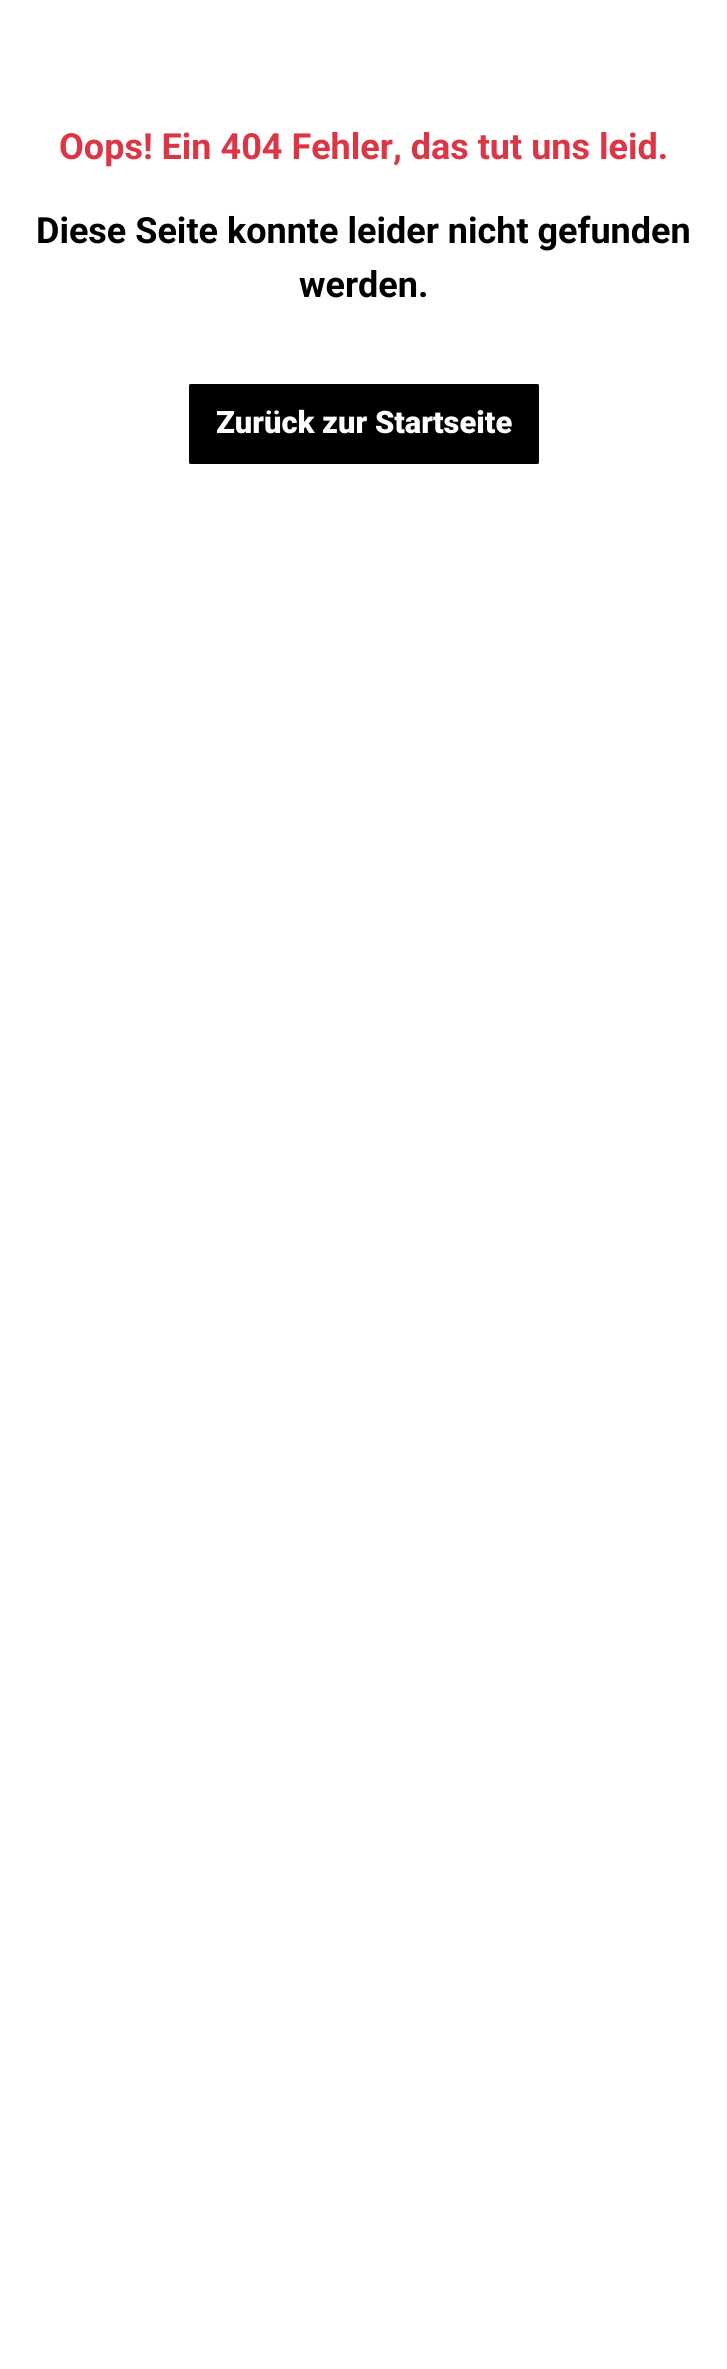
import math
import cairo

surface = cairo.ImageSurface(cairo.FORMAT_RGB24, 727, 2369)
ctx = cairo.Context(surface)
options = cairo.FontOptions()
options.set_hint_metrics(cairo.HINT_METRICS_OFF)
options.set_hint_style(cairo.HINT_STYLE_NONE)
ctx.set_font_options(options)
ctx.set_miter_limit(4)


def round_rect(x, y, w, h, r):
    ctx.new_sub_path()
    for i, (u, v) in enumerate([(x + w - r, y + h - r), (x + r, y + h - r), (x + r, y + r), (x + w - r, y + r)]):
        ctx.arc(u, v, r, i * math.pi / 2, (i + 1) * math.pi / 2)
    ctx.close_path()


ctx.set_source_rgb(1, 1, 1)
ctx.paint()
ctx.select_font_face("Roboto", cairo.FONT_SLANT_NORMAL, cairo.FONT_WEIGHT_BOLD)
ctx.set_font_size(36)
ctx.set_source_rgb(0.863, 0.208, 0.271)
ctx.move_to(59, 159)
ctx.show_text("Oops! Ein 404 Fehler, das tut uns leid.")
ctx.set_source_rgb(0, 0, 0)
ctx.move_to(36, 243)
ctx.show_text("Diese Seite konnte leider nicht gefunden")
ctx.move_to(299, 297)
ctx.show_text("werden.")
round_rect(189, 384, 350, 80, 1.5)
ctx.fill()
ctx.select_font_face("Roboto Black")
ctx.set_font_size(30.9)
ctx.set_source_rgb(1, 1, 1)
ctx.move_to(216, 433)
ctx.show_text("Zurück zur Startseite")
surface.write_to_png("page.png")
